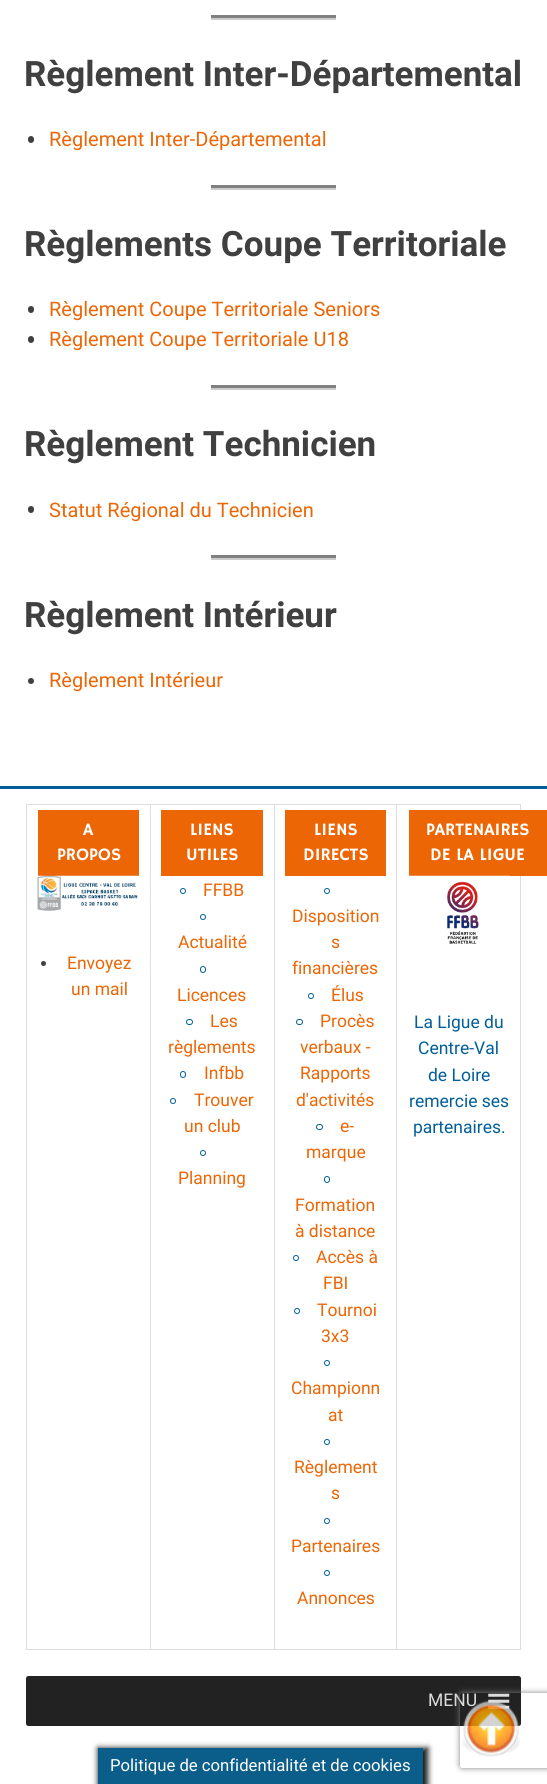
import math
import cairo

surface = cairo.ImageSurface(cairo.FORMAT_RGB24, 547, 1784)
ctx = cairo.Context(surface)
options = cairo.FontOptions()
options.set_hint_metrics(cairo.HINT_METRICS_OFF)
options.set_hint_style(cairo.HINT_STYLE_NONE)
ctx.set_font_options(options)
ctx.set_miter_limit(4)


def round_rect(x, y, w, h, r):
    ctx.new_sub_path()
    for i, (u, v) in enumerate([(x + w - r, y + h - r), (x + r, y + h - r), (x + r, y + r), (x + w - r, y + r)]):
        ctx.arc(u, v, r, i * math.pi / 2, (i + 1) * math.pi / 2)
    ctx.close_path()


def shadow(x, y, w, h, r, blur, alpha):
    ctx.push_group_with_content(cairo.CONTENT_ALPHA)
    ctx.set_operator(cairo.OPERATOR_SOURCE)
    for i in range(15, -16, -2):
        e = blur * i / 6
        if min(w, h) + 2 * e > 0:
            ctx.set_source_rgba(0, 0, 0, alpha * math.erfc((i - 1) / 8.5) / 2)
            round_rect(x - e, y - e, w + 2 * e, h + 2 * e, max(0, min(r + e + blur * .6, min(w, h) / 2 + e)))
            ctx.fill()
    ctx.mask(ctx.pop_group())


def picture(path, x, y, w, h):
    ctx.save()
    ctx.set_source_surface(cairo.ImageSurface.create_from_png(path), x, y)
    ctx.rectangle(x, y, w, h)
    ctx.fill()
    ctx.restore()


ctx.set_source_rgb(1, 1, 1)
ctx.paint()
ctx.set_source_rgb(0.8, 0.8, 0.8)
ctx.rectangle(211, 18, 125, 2)
ctx.fill()
ctx.set_source_rgb(0.502, 0.502, 0.502)
ctx.rectangle(211, 15, 125, 3)
ctx.fill()
ctx.select_font_face("Roboto", cairo.FONT_SLANT_NORMAL, cairo.FONT_WEIGHT_BOLD)
ctx.set_font_size(35)
ctx.set_source_rgb(0.251, 0.251, 0.251)
ctx.move_to(24, 86)
ctx.show_text("Règlement Inter-Départemental")
round_rect(28, 136, 6, 7, 3)
ctx.fill()
ctx.select_font_face("Roboto")
ctx.set_font_size(20)
ctx.set_source_rgb(0.925, 0.4, 0.027)
ctx.move_to(49, 146)
ctx.show_text("Règlement Inter-Départemental")
ctx.set_source_rgb(0.8, 0.8, 0.8)
ctx.rectangle(211, 188, 125, 2)
ctx.fill()
ctx.set_source_rgb(0.502, 0.502, 0.502)
ctx.rectangle(211, 185, 125, 3)
ctx.fill()
ctx.select_font_face("Roboto", cairo.FONT_SLANT_NORMAL, cairo.FONT_WEIGHT_BOLD)
ctx.set_font_size(35)
ctx.set_source_rgb(0.251, 0.251, 0.251)
ctx.move_to(24, 256)
ctx.show_text("Règlements Coupe Territoriale")
round_rect(28, 306, 6, 7, 3)
ctx.fill()
ctx.select_font_face("Roboto")
ctx.set_font_size(20)
ctx.set_source_rgb(0.925, 0.4, 0.027)
ctx.move_to(49, 316)
ctx.show_text("Règlement Coupe Territoriale Seniors")
ctx.set_source_rgb(0.251, 0.251, 0.251)
round_rect(28, 336, 6, 7, 3)
ctx.fill()
ctx.set_source_rgb(0.925, 0.4, 0.027)
ctx.move_to(49, 346)
ctx.show_text("Règlement Coupe Territoriale U18")
ctx.set_source_rgb(0.8, 0.8, 0.8)
ctx.rectangle(211, 388, 125, 2)
ctx.fill()
ctx.set_source_rgb(0.502, 0.502, 0.502)
ctx.rectangle(211, 385, 125, 3)
ctx.fill()
ctx.select_font_face("Roboto", cairo.FONT_SLANT_NORMAL, cairo.FONT_WEIGHT_BOLD)
ctx.set_font_size(35)
ctx.set_source_rgb(0.251, 0.251, 0.251)
ctx.move_to(24, 456)
ctx.show_text("Règlement Technicien")
round_rect(28, 506, 6, 7, 3)
ctx.fill()
ctx.select_font_face("Roboto")
ctx.set_font_size(20)
ctx.set_source_rgb(0.925, 0.4, 0.027)
ctx.move_to(49, 517)
ctx.show_text("Statut Régional du Technicien")
ctx.set_source_rgb(0.8, 0.8, 0.8)
ctx.rectangle(211, 558, 125, 2)
ctx.fill()
ctx.set_source_rgb(0.502, 0.502, 0.502)
ctx.rectangle(211, 555, 125, 3)
ctx.fill()
ctx.select_font_face("Roboto", cairo.FONT_SLANT_NORMAL, cairo.FONT_WEIGHT_BOLD)
ctx.set_font_size(35)
ctx.set_source_rgb(0.251, 0.251, 0.251)
ctx.move_to(24, 627)
ctx.show_text("Règlement Intérieur")
ctx.new_path()
ctx.arc(31, 681, 3, 0, 2 * math.pi)
ctx.fill()
ctx.select_font_face("Roboto")
ctx.set_font_size(20)
ctx.set_source_rgb(0.925, 0.4, 0.027)
ctx.move_to(49, 687)
ctx.show_text("Règlement Intérieur")
ctx.set_source_rgb(0, 0.373, 0.6)
ctx.rectangle(0, 786, 547, 3)
ctx.fill()
ctx.set_source_rgb(0.867, 0.867, 0.867)
ctx.rectangle(396, 804, 125, 1)
ctx.fill()
ctx.rectangle(520, 804, 1, 846)
ctx.fill()
ctx.rectangle(396, 1649, 125, 1)
ctx.fill()
ctx.rectangle(396, 804, 1, 846)
ctx.fill()
ctx.rectangle(274, 804, 124, 1)
ctx.fill()
ctx.rectangle(274, 1649, 124, 1)
ctx.fill()
ctx.rectangle(274, 804, 1, 846)
ctx.fill()
ctx.rectangle(150, 804, 125, 1)
ctx.fill()
ctx.rectangle(150, 1649, 125, 1)
ctx.fill()
ctx.rectangle(150, 804, 1, 846)
ctx.fill()
ctx.rectangle(26, 804, 125, 1)
ctx.fill()
ctx.rectangle(26, 1649, 125, 1)
ctx.fill()
ctx.rectangle(26, 804, 1, 846)
ctx.fill()
ctx.set_source_rgb(0.925, 0.4, 0.027)
ctx.rectangle(38, 810, 101, 66)
ctx.fill()
ctx.select_font_face("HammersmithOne")
ctx.set_font_size(17.5)
ctx.set_source_rgb(1, 1, 1)
ctx.move_to(83, 835)
ctx.show_text("A")
ctx.move_to(57, 860)
ctx.show_text("PROPOS")
picture("img1.png", 37, 875, 102, 36)
ctx.set_source_rgb(0.251, 0.251, 0.251)
ctx.arc(43.5, 963.5, 2.5, 0, 2 * math.pi)
ctx.fill()
ctx.select_font_face("Roboto")
ctx.set_source_rgb(0.925, 0.4, 0.027)
ctx.move_to(67, 969)
ctx.show_text("Envoyez")
ctx.move_to(71, 995)
ctx.show_text("un mail")
ctx.rectangle(161, 810, 102, 66)
ctx.fill()
ctx.select_font_face("HammersmithOne")
ctx.set_source_rgb(1, 1, 1)
ctx.move_to(190, 835)
ctx.show_text("LIENS")
ctx.move_to(186, 860)
ctx.show_text("UTILES")
ctx.new_path()
ctx.arc(183, 891, 2.5, 0, 2 * math.pi)
ctx.set_source_rgb(0, 0.373, 0.6)
ctx.set_line_width(1)
ctx.stroke()
ctx.select_font_face("Roboto")
ctx.set_source_rgb(0.925, 0.4, 0.027)
ctx.move_to(203, 896)
ctx.show_text("FFBB")
ctx.new_path()
ctx.arc(203, 917, 2.5, 0, 2 * math.pi)
ctx.set_source_rgb(0, 0.373, 0.6)
ctx.stroke()
ctx.set_source_rgb(0.925, 0.4, 0.027)
ctx.move_to(178, 948)
ctx.show_text("Actualité")
round_rect(200.5, 966.5, 5, 6, 2.5)
ctx.set_source_rgb(0, 0.373, 0.6)
ctx.stroke()
ctx.set_source_rgb(0.925, 0.4, 0.027)
ctx.move_to(177, 1001)
ctx.show_text("Licences")
round_rect(186.5, 1019.5, 6, 5, 2.5)
ctx.set_source_rgb(0, 0.373, 0.6)
ctx.stroke()
ctx.set_source_rgb(0.925, 0.4, 0.027)
ctx.move_to(210, 1027)
ctx.show_text("Les")
ctx.move_to(168, 1053)
ctx.show_text("règlements")
round_rect(180.5, 1071.5, 5, 6, 2.5)
ctx.set_source_rgb(0, 0.373, 0.6)
ctx.stroke()
ctx.set_source_rgb(0.925, 0.4, 0.027)
ctx.move_to(204, 1079)
ctx.show_text("Infbb")
ctx.new_path()
ctx.arc(173, 1101, 2.5, 0, 2 * math.pi)
ctx.set_source_rgb(0, 0.373, 0.6)
ctx.stroke()
ctx.set_source_rgb(0.925, 0.4, 0.027)
ctx.move_to(194, 1106)
ctx.show_text("Trouver")
ctx.move_to(184, 1132)
ctx.show_text("un club")
ctx.new_path()
ctx.arc(203, 1153, 2.5, 0, 2 * math.pi)
ctx.set_source_rgb(0, 0.373, 0.6)
ctx.stroke()
ctx.set_source_rgb(0.925, 0.4, 0.027)
ctx.move_to(178, 1184)
ctx.show_text("Planning")
ctx.rectangle(285, 810, 101, 66)
ctx.fill()
ctx.select_font_face("HammersmithOne")
ctx.set_source_rgb(1, 1, 1)
ctx.move_to(314, 835)
ctx.show_text("LIENS")
ctx.move_to(303, 860)
ctx.show_text("DIRECTS")
ctx.new_path()
ctx.arc(327, 891, 2.5, 0, 2 * math.pi)
ctx.set_source_rgb(0, 0.373, 0.6)
ctx.stroke()
ctx.select_font_face("Roboto")
ctx.set_source_rgb(0.925, 0.4, 0.027)
ctx.move_to(292, 922)
ctx.show_text("Disposition")
ctx.move_to(331, 948)
ctx.show_text("s")
ctx.move_to(292, 974)
ctx.show_text("financières")
ctx.new_path()
ctx.arc(311, 996, 2.5, 0, 2 * math.pi)
ctx.set_source_rgb(0, 0.373, 0.6)
ctx.stroke()
ctx.set_source_rgb(0.925, 0.4, 0.027)
ctx.move_to(331, 1001)
ctx.show_text("Élus")
round_rect(296.5, 1019.5, 6, 5, 2.5)
ctx.set_source_rgb(0, 0.373, 0.6)
ctx.stroke()
ctx.set_source_rgb(0.925, 0.4, 0.027)
ctx.move_to(320, 1027)
ctx.show_text("Procès")
ctx.move_to(300, 1053)
ctx.show_text("verbaux -")
ctx.move_to(300, 1079)
ctx.show_text("Rapports")
ctx.move_to(296, 1106)
ctx.show_text("d'activités")
round_rect(316.5, 1124.5, 6, 5, 2.5)
ctx.set_source_rgb(0, 0.373, 0.6)
ctx.stroke()
ctx.set_source_rgb(0.925, 0.4, 0.027)
ctx.move_to(340, 1132)
ctx.show_text("e-")
ctx.move_to(306, 1158)
ctx.show_text("marque")
round_rect(324.5, 1176.5, 5, 6, 2.5)
ctx.set_source_rgb(0, 0.373, 0.6)
ctx.stroke()
ctx.set_source_rgb(0.925, 0.4, 0.027)
ctx.move_to(295, 1211)
ctx.show_text("Formation")
ctx.move_to(295, 1237)
ctx.show_text("à distance")
ctx.new_path()
ctx.arc(296, 1258, 2.5, 0, 2 * math.pi)
ctx.set_source_rgb(0, 0.373, 0.6)
ctx.stroke()
ctx.set_source_rgb(0.925, 0.4, 0.027)
ctx.move_to(316, 1263)
ctx.show_text("Accès à")
ctx.move_to(323, 1289)
ctx.show_text("FBI")
ctx.new_path()
ctx.arc(297, 1311, 2.5, 0, 2 * math.pi)
ctx.set_source_rgb(0, 0.373, 0.6)
ctx.stroke()
ctx.set_source_rgb(0.925, 0.4, 0.027)
ctx.move_to(317, 1316)
ctx.show_text("Tournoi")
ctx.move_to(321, 1342)
ctx.show_text("3x3")
ctx.new_path()
ctx.arc(327, 1363, 2.5, 0, 2 * math.pi)
ctx.set_source_rgb(0, 0.373, 0.6)
ctx.stroke()
ctx.set_source_rgb(0.925, 0.4, 0.027)
ctx.move_to(291, 1394)
ctx.show_text("Championn")
ctx.move_to(328, 1421)
ctx.show_text("at")
ctx.new_path()
ctx.arc(327, 1442, 2.5, 0, 2 * math.pi)
ctx.set_source_rgb(0, 0.373, 0.6)
ctx.stroke()
ctx.set_source_rgb(0.925, 0.4, 0.027)
ctx.move_to(294, 1473)
ctx.show_text("Règlement")
ctx.move_to(331, 1499)
ctx.show_text("s")
ctx.new_path()
ctx.arc(327, 1521, 2.5, 0, 2 * math.pi)
ctx.set_source_rgb(0, 0.373, 0.6)
ctx.stroke()
ctx.set_source_rgb(0.925, 0.4, 0.027)
ctx.move_to(291, 1552)
ctx.show_text("Partenaires")
ctx.new_path()
ctx.arc(327, 1573, 2.5, 0, 2 * math.pi)
ctx.set_source_rgb(0, 0.373, 0.6)
ctx.stroke()
ctx.set_source_rgb(0.925, 0.4, 0.027)
ctx.move_to(297, 1604)
ctx.show_text("Annonces")
ctx.rectangle(409, 810, 138, 66)
ctx.fill()
ctx.select_font_face("HammersmithOne")
ctx.set_source_rgb(1, 1, 1)
ctx.move_to(426, 835)
ctx.show_text("PARTENAIRES")
ctx.move_to(430, 860)
ctx.show_text("DE LA LIGUE")
picture("img2.png", 409, 875, 101, 69)
ctx.select_font_face("Roboto")
ctx.set_source_rgb(0, 0.373, 0.6)
ctx.move_to(414, 1028)
ctx.show_text("La Ligue du")
ctx.move_to(418, 1054)
ctx.show_text("Centre-Val")
ctx.move_to(428, 1081)
ctx.show_text("de Loire")
ctx.move_to(409, 1107)
ctx.show_text("remercie ses")
ctx.move_to(413, 1133)
ctx.show_text("partenaires.")
ctx.set_source_rgb(0.133, 0.133, 0.133)
round_rect(26, 1676, 495, 50, 2.5)
ctx.fill()
ctx.set_source_rgb(0.867, 0.867, 0.867)
ctx.move_to(428, 1706)
ctx.show_text("MENU")
picture("img3.png", 488, 1693, 22, 16)
ctx.save()
ctx.set_fill_rule(cairo.FILL_RULE_EVEN_ODD)
ctx.new_path()
ctx.move_to(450, 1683)
ctx.line_to(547, 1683)
ctx.line_to(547, 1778)
ctx.line_to(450, 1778)
ctx.close_path()
ctx.move_to(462.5, 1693)
ctx.line_to(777.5, 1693)
ctx.curve_to(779, 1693, 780, 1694, 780, 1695.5)
ctx.line_to(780, 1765.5)
ctx.curve_to(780, 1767, 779, 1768, 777.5, 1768)
ctx.line_to(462.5, 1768)
ctx.curve_to(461, 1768, 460, 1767, 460, 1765.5)
ctx.line_to(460, 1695.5)
ctx.curve_to(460, 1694, 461, 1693, 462.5, 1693)
ctx.close_path()
ctx.clip()
ctx.set_source_rgb(0.502, 0.502, 0.502)
shadow(460, 1693, 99, 75, 2.5, 3, 1)
ctx.restore()
picture("img4.png", 462, 1700, 58, 57)
ctx.set_source_rgb(0.086, 0.086, 0.086)
shadow(98, 1748, 330, 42, 0, 3, 1)
ctx.set_source_rgb(0.043, 0.369, 0.541)
ctx.rectangle(98, 1748, 325, 36)
ctx.fill()
ctx.set_font_size(16.7)
ctx.set_source_rgb(1, 1, 1)
ctx.move_to(110, 1771)
ctx.show_text("Politique de confidentialité et de cookies")
surface.write_to_png("page.png")
